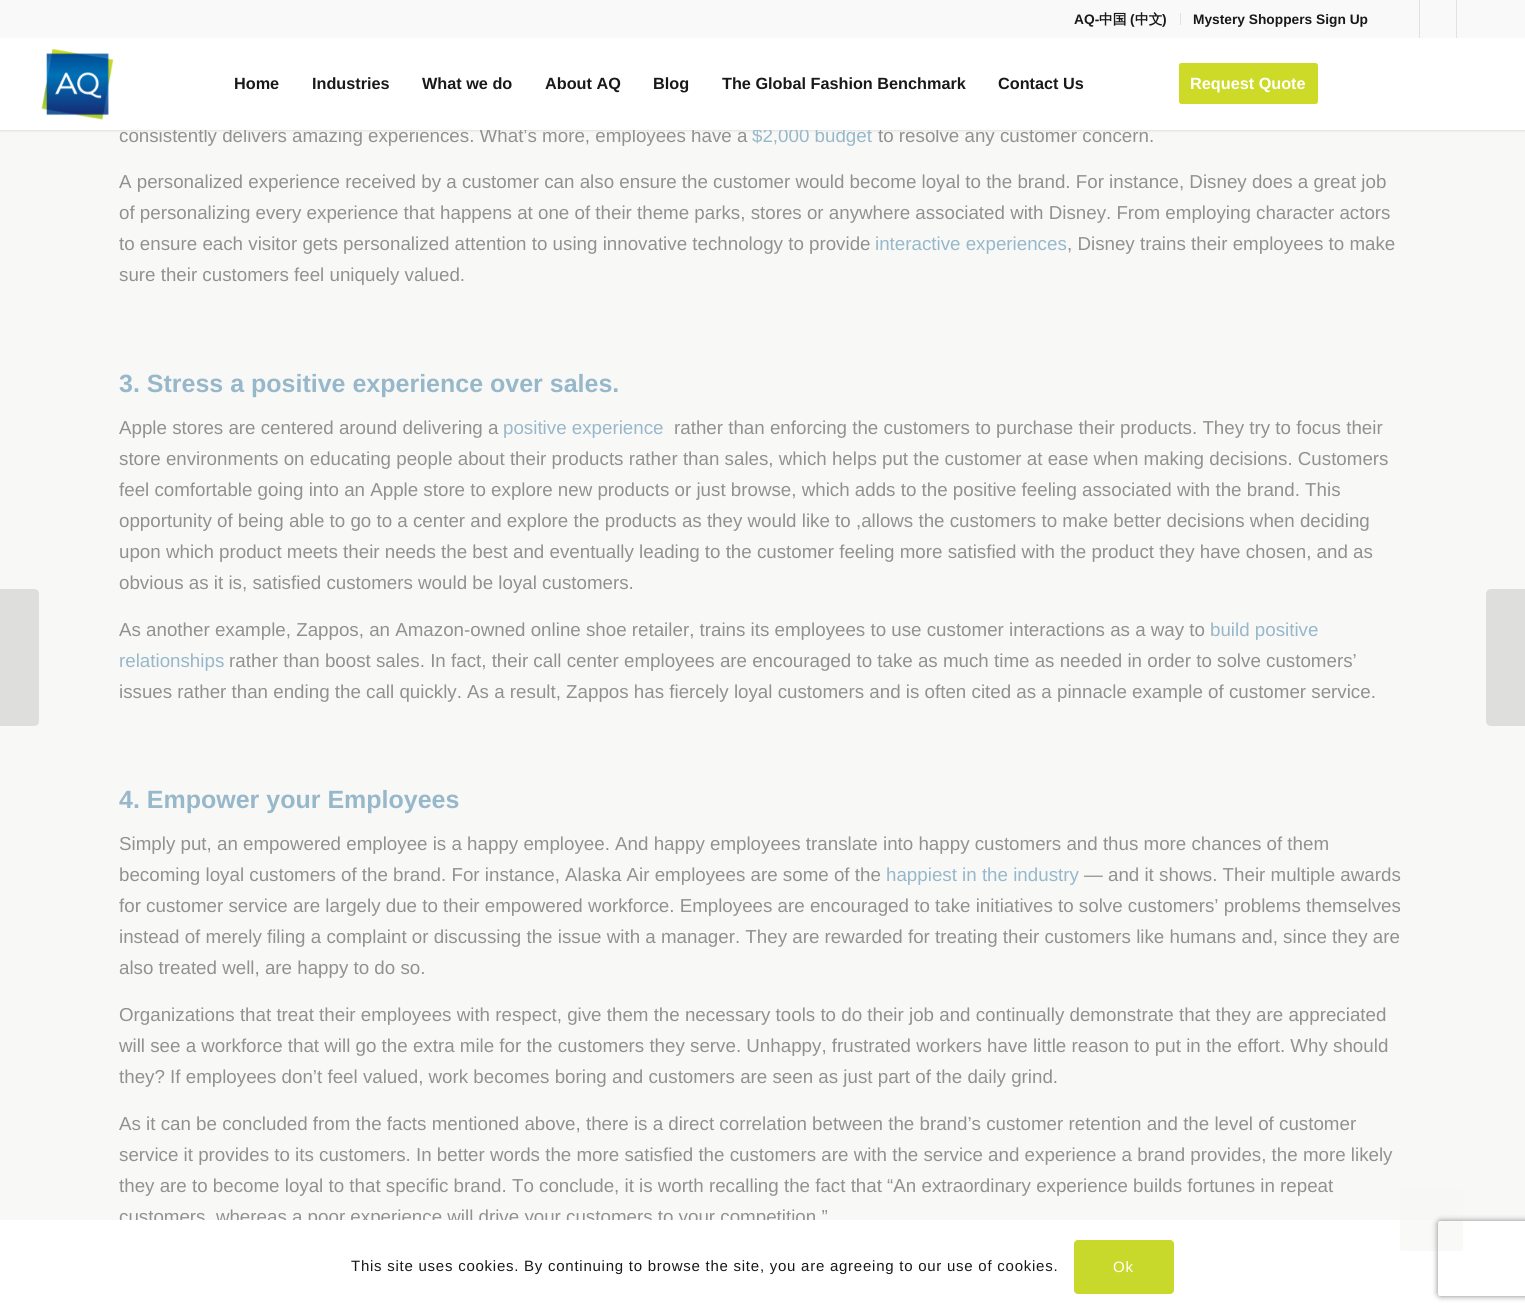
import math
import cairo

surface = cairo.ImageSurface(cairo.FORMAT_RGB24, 1525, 1313)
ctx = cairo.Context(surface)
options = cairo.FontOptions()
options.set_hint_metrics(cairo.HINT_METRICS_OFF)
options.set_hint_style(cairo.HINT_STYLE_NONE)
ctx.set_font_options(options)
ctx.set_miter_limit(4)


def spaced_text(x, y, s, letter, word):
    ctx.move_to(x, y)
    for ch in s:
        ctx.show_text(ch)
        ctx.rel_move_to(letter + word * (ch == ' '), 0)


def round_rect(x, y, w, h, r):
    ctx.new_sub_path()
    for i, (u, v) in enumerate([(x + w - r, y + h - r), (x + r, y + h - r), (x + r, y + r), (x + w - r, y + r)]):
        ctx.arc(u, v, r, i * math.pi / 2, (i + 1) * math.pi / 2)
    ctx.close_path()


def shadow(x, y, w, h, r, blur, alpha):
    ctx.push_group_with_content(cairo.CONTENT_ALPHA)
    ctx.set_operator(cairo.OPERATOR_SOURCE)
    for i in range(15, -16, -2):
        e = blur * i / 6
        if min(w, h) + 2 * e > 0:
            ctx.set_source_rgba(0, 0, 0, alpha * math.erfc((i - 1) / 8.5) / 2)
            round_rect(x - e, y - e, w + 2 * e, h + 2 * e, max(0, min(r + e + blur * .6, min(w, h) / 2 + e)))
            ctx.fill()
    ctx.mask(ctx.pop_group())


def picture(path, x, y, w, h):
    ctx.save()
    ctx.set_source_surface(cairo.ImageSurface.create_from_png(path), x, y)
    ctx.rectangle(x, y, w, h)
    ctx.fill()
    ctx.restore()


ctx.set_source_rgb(0.969, 0.973, 0.965)
ctx.paint()
ctx.set_source_rgb(0, 0, 0)
shadow(-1, -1, 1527, 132, 0, 1, 0.1)
ctx.set_source_rgb(0.973, 0.973, 0.973)
ctx.rectangle(0, 0, 1525, 38)
ctx.fill()
ctx.set_source_rgb(0.882, 0.882, 0.882)
ctx.rectangle(1180, 13, 1, 12)
ctx.fill()
ctx.select_font_face("Liberation Sans", cairo.FONT_SLANT_NORMAL, cairo.FONT_WEIGHT_BOLD)
ctx.set_font_size(13.75)
ctx.set_source_rgb(0.098, 0.098, 0.098)
ctx.move_to(1074, 24)
ctx.show_text("AQ-")
ctx.select_font_face("WenQuanYi Zen Hei", cairo.FONT_SLANT_NORMAL, cairo.FONT_WEIGHT_BOLD)
ctx.move_to(1099, 24)
ctx.show_text("中国")
ctx.select_font_face("Liberation Sans", cairo.FONT_SLANT_NORMAL, cairo.FONT_WEIGHT_BOLD)
ctx.move_to(1130, 24)
ctx.show_text("(")
ctx.select_font_face("WenQuanYi Zen Hei", cairo.FONT_SLANT_NORMAL, cairo.FONT_WEIGHT_BOLD)
ctx.move_to(1135, 24)
ctx.show_text("中文")
ctx.select_font_face("Liberation Sans", cairo.FONT_SLANT_NORMAL, cairo.FONT_WEIGHT_BOLD)
ctx.move_to(1162, 24)
ctx.show_text(")")
ctx.move_to(1193, 24)
ctx.show_text("Mystery Shoppers Sign Up")
ctx.set_source_rgb(0.882, 0.882, 0.882)
ctx.rectangle(1419, 0, 1, 38)
ctx.fill()
ctx.rectangle(1456, 0, 1, 38)
ctx.fill()
ctx.select_font_face("Liberation Sans")
ctx.set_font_size(18.75)
ctx.set_source_rgb(0.569, 0.569, 0.569)
ctx.move_to(119, 142)
ctx.show_text("consistently delivers amazing experiences. What’s more, employees have a")
ctx.set_source_rgb(0.592, 0.718, 0.792)
ctx.move_to(752, 142)
ctx.show_text("$2,000 budget")
ctx.set_source_rgb(0.569, 0.569, 0.569)
ctx.move_to(878, 142)
ctx.show_text("to resolve any customer concern.")
ctx.set_source_rgb(1, 1, 1)
ctx.rectangle(0, 38, 1525, 92)
ctx.fill()
picture("img1.png", 41, 49, 73, 71)
ctx.select_font_face("Liberation Sans", cairo.FONT_SLANT_NORMAL, cairo.FONT_WEIGHT_BOLD)
ctx.set_font_size(16.25)
ctx.set_source_rgb(0.098, 0.098, 0.098)
ctx.move_to(234, 89)
ctx.show_text("Home")
ctx.move_to(312, 89)
ctx.show_text("Industries")
ctx.move_to(422, 89)
ctx.show_text("What we do")
ctx.move_to(545, 89)
ctx.show_text("About AQ")
ctx.move_to(653, 89)
ctx.show_text("Blog")
ctx.move_to(722, 89)
ctx.show_text("The Global Fashion Benchmark")
ctx.move_to(998, 89)
ctx.show_text("Contact Us")
ctx.set_source_rgb(0.804, 0.859, 0.157)
round_rect(1179, 63, 139, 41, 2.5)
ctx.fill()
ctx.set_source_rgb(1, 1, 1)
ctx.move_to(1190, 89)
ctx.show_text("Request Quote")
ctx.set_source_rgb(0.871, 0.875, 0.867)
ctx.new_path()
ctx.move_to(0, 589)
ctx.line_to(34, 589)
ctx.curve_to(37, 589, 39, 591, 39, 594)
ctx.line_to(39, 721)
ctx.curve_to(39, 724, 37, 726, 34, 726)
ctx.line_to(0, 726)
ctx.close_path()
ctx.fill()
ctx.select_font_face("Liberation Sans")
ctx.set_font_size(18.75)
ctx.set_source_rgb(0.569, 0.569, 0.569)
ctx.move_to(119, 188)
ctx.show_text("A personalized experience received by a customer can also ensure the customer would become loyal to the brand. For instance, Disney does a great job")
ctx.move_to(119, 219)
ctx.show_text("of personalizing every experience that happens at one of their theme parks, stores or anywhere associated with Disney. From employing character actors")
ctx.move_to(119, 250)
ctx.show_text("to ensure each visitor gets personalized attention to using innovative technology to provide")
ctx.set_source_rgb(0.592, 0.718, 0.792)
ctx.move_to(875, 250)
ctx.show_text("interactive experiences")
ctx.set_source_rgb(0.569, 0.569, 0.569)
ctx.move_to(1067, 250)
ctx.show_text(", Disney trains their employees to make")
ctx.move_to(119, 281)
ctx.show_text("sure their customers feel uniquely valued.")
ctx.select_font_face("Liberation Sans", cairo.FONT_SLANT_NORMAL, cairo.FONT_WEIGHT_BOLD)
ctx.set_font_size(25)
ctx.set_source_rgb(0.592, 0.718, 0.792)
ctx.move_to(119, 392)
ctx.show_text("3. Stress a positive experience over sales.")
ctx.select_font_face("Liberation Sans")
ctx.set_font_size(18.75)
ctx.set_source_rgb(0.569, 0.569, 0.569)
ctx.move_to(119, 434)
ctx.show_text("Apple stores are centered around delivering a")
ctx.set_source_rgb(0.592, 0.718, 0.792)
ctx.move_to(503, 434)
ctx.show_text("positive experience")
ctx.set_source_rgb(0.569, 0.569, 0.569)
ctx.move_to(674, 434)
ctx.show_text("rather than enforcing the customers to purchase their products. They try to focus their")
ctx.move_to(119, 465)
ctx.show_text("store environments on educating people about their products rather than sales, which helps put the customer at ease when making decisions. Customers")
ctx.move_to(119, 496)
ctx.show_text("feel comfortable going into an Apple store to explore new products or just browse, which adds to the positive feeling associated with the brand. This")
ctx.move_to(119, 527)
ctx.show_text("opportunity of being able to go to a center and explore the products as they would like to ,allows the customers to make better decisions when deciding")
ctx.move_to(119, 558)
ctx.show_text("upon which product meets their needs the best and eventually leading to the customer feeling more satisfied with the product they have chosen, and as")
ctx.move_to(119, 589)
ctx.show_text("obvious as it is, satisfied customers would be loyal customers.")
ctx.move_to(119, 636)
ctx.show_text("As another example, Zappos, an Amazon-owned online shoe retailer, trains its employees to use customer interactions as a way to")
ctx.set_source_rgb(0.592, 0.718, 0.792)
ctx.move_to(1210, 636)
ctx.show_text("build positive")
ctx.move_to(119, 667)
ctx.show_text("relationships")
ctx.set_source_rgb(0.569, 0.569, 0.569)
ctx.move_to(229, 667)
ctx.show_text("rather than boost sales. In fact, their call center employees are encouraged to take as much time as needed in order to solve customers’")
ctx.move_to(119, 698)
ctx.show_text("issues rather than ending the call quickly. As a result, Zappos has fiercely loyal customers and is often cited as a pinnacle example of customer service.")
ctx.select_font_face("Liberation Sans", cairo.FONT_SLANT_NORMAL, cairo.FONT_WEIGHT_BOLD)
ctx.set_font_size(25)
ctx.set_source_rgb(0.592, 0.718, 0.792)
ctx.move_to(119, 808)
ctx.show_text("4. Empower your Employees")
ctx.select_font_face("Liberation Sans")
ctx.set_font_size(18.75)
ctx.set_source_rgb(0.569, 0.569, 0.569)
ctx.move_to(119, 850)
ctx.show_text("Simply put, an empowered employee is a happy employee. And happy employees translate into happy customers and thus more chances of them")
ctx.move_to(119, 881)
ctx.show_text("becoming loyal customers of the brand. For instance, Alaska Air employees are some of the")
ctx.set_source_rgb(0.592, 0.718, 0.792)
ctx.move_to(886, 881)
ctx.show_text("happiest in the industry")
ctx.set_source_rgb(0.569, 0.569, 0.569)
ctx.move_to(1084, 881)
ctx.show_text("— and it shows. Their multiple awards")
ctx.move_to(119, 912)
ctx.show_text("for customer service are largely due to their empowered workforce. Employees are encouraged to take initiatives to solve customers’ problems themselves")
ctx.move_to(119, 943)
ctx.show_text("instead of merely filing a complaint or discussing the issue with a manager. They are rewarded for treating their customers like humans and, since they are")
ctx.move_to(119, 974)
ctx.show_text("also treated well, are happy to do so.")
ctx.move_to(119, 1021)
ctx.show_text("Organizations that treat their employees with respect, give them the necessary tools to do their job and continually demonstrate that they are appreciated")
ctx.move_to(119, 1052)
ctx.show_text("will see a workforce that will go the extra mile for the customers they serve. Unhappy, frustrated workers have little reason to put in the effort. Why should")
ctx.move_to(119, 1083)
ctx.show_text("they? If employees don’t feel valued, work becomes boring and customers are seen as just part of the daily grind.")
ctx.move_to(119, 1130)
ctx.show_text("As it can be concluded from the facts mentioned above, there is a direct correlation between the brand’s customer retention and the level of customer")
ctx.move_to(119, 1161)
ctx.show_text("service it provides to its customers. In better words the more satisfied the customers are with the service and experience a brand provides, the more likely")
ctx.move_to(119, 1192)
ctx.show_text("they are to become loyal to that specific brand. To conclude, it is worth recalling the fact that “An extraordinary experience builds fortunes in repeat")
ctx.move_to(119, 1223)
ctx.show_text("customers, whereas a poor experience will drive your customers to your competition.”")
ctx.set_source_rgb(0.871, 0.875, 0.867)
ctx.new_path()
ctx.move_to(1491, 589)
ctx.line_to(1525, 589)
ctx.line_to(1525, 726)
ctx.line_to(1491, 726)
ctx.curve_to(1488, 726, 1486, 724, 1486, 721)
ctx.line_to(1486, 594)
ctx.curve_to(1486, 591, 1488, 589, 1491, 589)
ctx.close_path()
ctx.fill()
ctx.set_source_rgb(1, 1, 1)
ctx.rectangle(0, 1220, 1525, 93)
ctx.fill()
ctx.set_source_rgba(0.969, 0.973, 0.965, 0.7)
round_rect(1400, 1189, 63, 62, 2.5)
ctx.fill()
ctx.set_font_size(15)
ctx.set_source_rgb(0.098, 0.098, 0.098)
spaced_text(351, 1271, "This site uses cookies. By continuing to browse the site, you are agreeing to our use of cookies.", 0.75, 0)
ctx.set_source_rgb(0.784, 0.851, 0.169)
round_rect(1074, 1240, 100, 54, 4)
ctx.fill()
ctx.set_source_rgb(1, 1, 1)
spaced_text(1113, 1272, "Ok", 0.75, 0)
ctx.save()
ctx.set_fill_rule(cairo.FILL_RULE_EVEN_ODD)
ctx.new_path()
ctx.move_to(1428, 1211)
ctx.line_to(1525, 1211)
ctx.line_to(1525, 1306)
ctx.line_to(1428, 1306)
ctx.close_path()
ctx.move_to(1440.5, 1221)
ctx.line_to(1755.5, 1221)
ctx.curve_to(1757, 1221, 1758, 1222, 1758, 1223.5)
ctx.line_to(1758, 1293.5)
ctx.curve_to(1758, 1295, 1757, 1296, 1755.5, 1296)
ctx.line_to(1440.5, 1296)
ctx.curve_to(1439, 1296, 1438, 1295, 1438, 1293.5)
ctx.line_to(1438, 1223.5)
ctx.curve_to(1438, 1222, 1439, 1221, 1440.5, 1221)
ctx.close_path()
ctx.clip()
ctx.set_source_rgb(0.502, 0.502, 0.502)
shadow(1438, 1221, 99, 75, 2.5, 3, 1)
ctx.restore()
surface.write_to_png("page.png")
